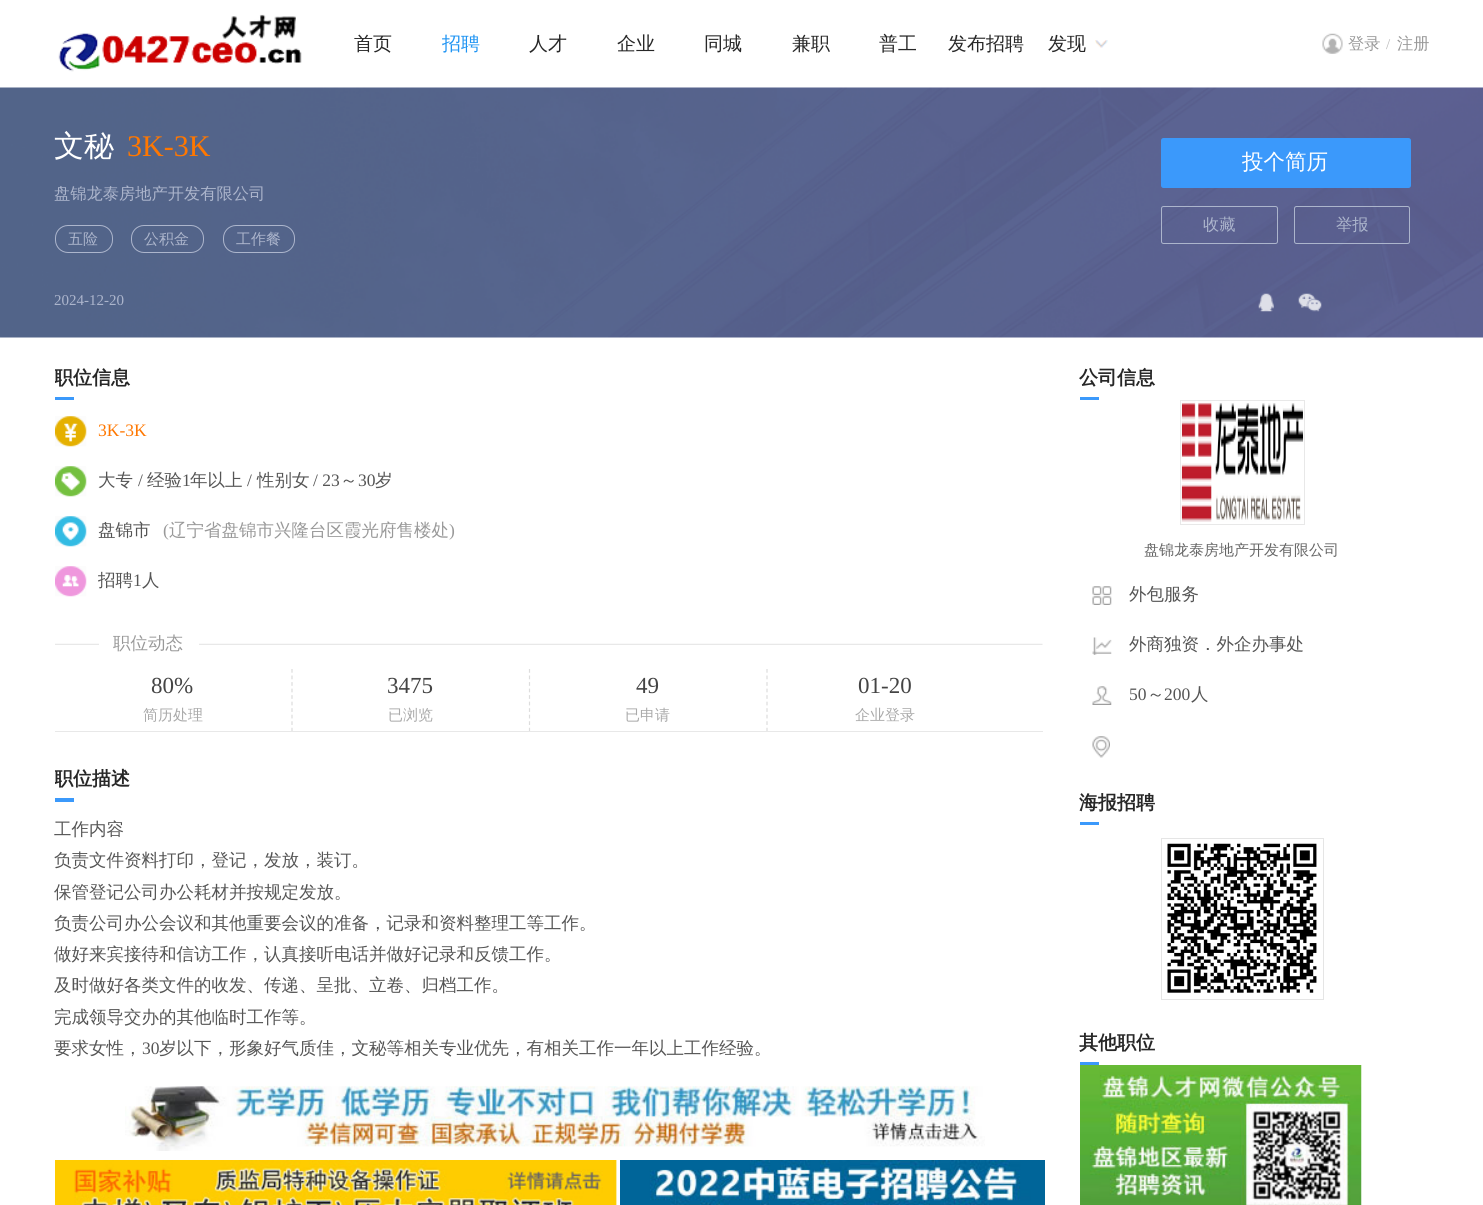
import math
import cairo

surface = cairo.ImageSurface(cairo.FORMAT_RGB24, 1483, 1205)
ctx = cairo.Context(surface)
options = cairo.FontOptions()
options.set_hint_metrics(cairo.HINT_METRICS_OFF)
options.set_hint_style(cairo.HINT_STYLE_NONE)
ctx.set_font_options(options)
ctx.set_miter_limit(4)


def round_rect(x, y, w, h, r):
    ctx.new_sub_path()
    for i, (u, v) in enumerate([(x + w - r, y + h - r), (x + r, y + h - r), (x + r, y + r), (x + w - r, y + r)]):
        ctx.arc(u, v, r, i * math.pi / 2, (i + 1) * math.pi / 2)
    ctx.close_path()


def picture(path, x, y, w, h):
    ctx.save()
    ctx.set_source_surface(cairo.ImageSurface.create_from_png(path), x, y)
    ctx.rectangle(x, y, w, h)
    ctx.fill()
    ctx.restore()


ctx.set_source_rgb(1, 1, 1)
ctx.paint()
picture("img1.png", 58, 14, 244, 58)
ctx.select_font_face("WenQuanYi Zen Hei Medium")
ctx.set_font_size(19)
ctx.set_source_rgb(0.153, 0.153, 0.153)
ctx.move_to(354, 50)
ctx.show_text("首页")
ctx.set_source_rgb(0.122, 0.58, 0.953)
ctx.move_to(442, 50)
ctx.show_text("招聘")
ctx.set_source_rgb(0.153, 0.153, 0.153)
ctx.move_to(529, 50)
ctx.show_text("人才")
ctx.move_to(617, 50)
ctx.show_text("企业")
ctx.move_to(704, 50)
ctx.show_text("同城")
ctx.move_to(792, 50)
ctx.show_text("兼职")
ctx.move_to(879, 50)
ctx.show_text("普工")
ctx.move_to(948, 50)
ctx.show_text("发布招聘")
picture("img2.png", 1095, 40, 13, 8)
ctx.move_to(1048, 50)
ctx.show_text("发现")
picture("img3.png", 1322, 33, 21, 21)
ctx.set_font_size(16.25)
ctx.set_source_rgb(0.6, 0.6, 0.6)
ctx.move_to(1348, 49)
ctx.show_text("登录")
ctx.select_font_face("Liberation Serif")
ctx.set_font_size(15)
ctx.set_source_rgb(0.733, 0.733, 0.733)
ctx.move_to(1386, 49)
ctx.show_text("/")
ctx.select_font_face("WenQuanYi Zen Hei Medium")
ctx.set_font_size(16.25)
ctx.set_source_rgb(0.6, 0.6, 0.6)
ctx.move_to(1397, 49)
ctx.show_text("注册")
picture("img4.png", 0, 87, 1483, 251)
ctx.set_font_size(30)
ctx.set_source_rgb(1, 1, 1)
ctx.move_to(54, 156)
ctx.show_text("文秘")
ctx.select_font_face("Liberation Serif")
ctx.set_source_rgb(1, 0.467, 0)
ctx.move_to(127, 156)
ctx.show_text("3K-3K")
ctx.select_font_face("WenQuanYi Zen Hei Medium")
ctx.set_font_size(16.25)
ctx.set_source_rgb(0.675, 0.71, 0.8)
ctx.move_to(54, 199)
ctx.show_text("盘锦龙泰房地产开发有限公司")
round_rect(55.5, 225.5, 57, 27, 12.5)
ctx.set_line_width(1)
ctx.stroke()
ctx.set_font_size(15)
ctx.move_to(68, 244)
ctx.show_text("五险")
round_rect(131.5, 225.5, 72, 27, 12.5)
ctx.stroke()
ctx.move_to(144, 244)
ctx.show_text("公积金")
round_rect(223.5, 225.5, 71, 27, 12.5)
ctx.stroke()
ctx.move_to(236, 244)
ctx.show_text("工作餐")
ctx.set_source_rgb(0.231, 0.6, 0.984)
round_rect(1161, 138, 250, 50, 2.5)
ctx.fill()
ctx.set_font_size(21.5)
ctx.set_source_rgb(1, 1, 1)
ctx.move_to(1242, 169)
ctx.show_text("投个简历")
round_rect(1161.5, 206.5, 116, 37, 2)
ctx.set_source_rgb(0.675, 0.71, 0.8)
ctx.stroke()
ctx.set_font_size(16.25)
ctx.move_to(1203, 230)
ctx.show_text("收藏")
round_rect(1294.5, 206.5, 115, 37, 2)
ctx.stroke()
ctx.move_to(1336, 230)
ctx.show_text("举报")
ctx.select_font_face("Liberation Serif")
ctx.set_font_size(15)
ctx.move_to(54, 305)
ctx.show_text("2024-12-20")
picture("img5.png", 1258, 293, 16, 19)
picture("img6.png", 1298, 293, 24, 19)
ctx.set_source_rgb(0.231, 0.6, 0.984)
ctx.rectangle(55, 397, 19, 3)
ctx.fill()
ctx.save()
ctx.rectangle(55, 356, 1375, 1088)
ctx.clip()
ctx.select_font_face("WenQuanYi Zen Hei", cairo.FONT_SLANT_NORMAL, cairo.FONT_WEIGHT_BOLD)
ctx.set_font_size(19)
ctx.set_source_rgb(0.153, 0.153, 0.153)
ctx.move_to(54, 384)
ctx.show_text("职位信息")
ctx.restore()
picture("img7.png", 55, 416, 32, 31)
ctx.set_font_size(17.5)
ctx.set_source_rgb(1, 0.467, 0)
ctx.move_to(98, 436)
ctx.show_text("3K-3K")
picture("img8.png", 55, 466, 32, 31)
ctx.select_font_face("WenQuanYi Zen Hei Medium")
ctx.set_source_rgb(0.333, 0.333, 0.333)
ctx.move_to(98, 486)
ctx.show_text("大专")
ctx.select_font_face("Liberation Serif")
ctx.move_to(138, 486)
ctx.show_text("/")
ctx.select_font_face("WenQuanYi Zen Hei Medium")
ctx.move_to(147, 486)
ctx.show_text("经验")
ctx.select_font_face("Liberation Serif")
ctx.move_to(182, 486)
ctx.show_text("1")
ctx.select_font_face("WenQuanYi Zen Hei Medium")
ctx.move_to(190, 486)
ctx.show_text("年以上")
ctx.select_font_face("Liberation Serif")
ctx.move_to(247, 486)
ctx.show_text("/")
ctx.select_font_face("WenQuanYi Zen Hei Medium")
ctx.move_to(257, 486)
ctx.show_text("性别女")
ctx.select_font_face("Liberation Serif")
ctx.move_to(313, 486)
ctx.show_text("/ 23")
ctx.select_font_face("WenQuanYi Zen Hei Medium")
ctx.move_to(340, 486)
ctx.show_text("～")
ctx.select_font_face("Liberation Serif")
ctx.move_to(358, 486)
ctx.show_text("30")
ctx.select_font_face("WenQuanYi Zen Hei Medium")
ctx.move_to(375, 486)
ctx.show_text("岁")
picture("img9.png", 55, 516, 32, 31)
ctx.move_to(98, 536)
ctx.show_text("盘锦市")
ctx.select_font_face("Liberation Serif")
ctx.set_source_rgb(0.6, 0.6, 0.6)
ctx.move_to(163, 536)
ctx.show_text("(")
ctx.select_font_face("WenQuanYi Zen Hei Medium")
ctx.move_to(169, 536)
ctx.show_text("辽宁省盘锦市兴隆台区霞光府售楼处")
ctx.select_font_face("Liberation Serif")
ctx.move_to(449, 536)
ctx.show_text(")")
picture("img10.png", 55, 566, 32, 31)
ctx.select_font_face("WenQuanYi Zen Hei Medium")
ctx.set_source_rgb(0.333, 0.333, 0.333)
ctx.move_to(98, 586)
ctx.show_text("招聘")
ctx.select_font_face("Liberation Serif")
ctx.move_to(133, 586)
ctx.show_text("1")
ctx.select_font_face("WenQuanYi Zen Hei Medium")
ctx.move_to(142, 586)
ctx.show_text("人")
ctx.set_source_rgb(0.91, 0.91, 0.91)
ctx.rectangle(55, 731, 988, 1)
ctx.fill()
picture("img11.png", 55, 643, 988, 2)
ctx.set_source_rgb(1, 1, 1)
ctx.rectangle(99, 643, 100, 2)
ctx.fill()
ctx.set_source_rgb(0.6, 0.6, 0.6)
ctx.move_to(113, 649)
ctx.show_text("职位动态")
ctx.new_path()
ctx.move_to(292, 669)
ctx.line_to(292, 731)
ctx.set_source_rgb(0.867, 0.867, 0.867)
ctx.set_line_width(1.2)
ctx.set_dash([3.75, 2.78])
ctx.stroke()
ctx.select_font_face("Liberation Serif")
ctx.set_font_size(23)
ctx.set_source_rgb(0.267, 0.267, 0.267)
ctx.move_to(151, 693)
ctx.show_text("80%")
ctx.select_font_face("WenQuanYi Zen Hei Medium")
ctx.set_font_size(15)
ctx.set_source_rgb(0.667, 0.667, 0.667)
ctx.move_to(143, 720)
ctx.show_text("简历处理")
ctx.new_path()
ctx.move_to(529.5, 669)
ctx.line_to(529.5, 731)
ctx.set_source_rgb(0.867, 0.867, 0.867)
ctx.stroke()
ctx.select_font_face("Liberation Serif")
ctx.set_font_size(23)
ctx.set_source_rgb(0.267, 0.267, 0.267)
ctx.move_to(387, 693)
ctx.show_text("3475")
ctx.select_font_face("WenQuanYi Zen Hei Medium")
ctx.set_font_size(15)
ctx.set_source_rgb(0.667, 0.667, 0.667)
ctx.move_to(388, 720)
ctx.show_text("已浏览")
ctx.new_path()
ctx.move_to(767, 669)
ctx.line_to(767, 731)
ctx.set_source_rgb(0.867, 0.867, 0.867)
ctx.stroke()
ctx.select_font_face("Liberation Serif")
ctx.set_font_size(23)
ctx.set_source_rgb(0.267, 0.267, 0.267)
ctx.move_to(636, 693)
ctx.show_text("49")
ctx.select_font_face("WenQuanYi Zen Hei Medium")
ctx.set_font_size(15)
ctx.set_source_rgb(0.667, 0.667, 0.667)
ctx.move_to(625, 720)
ctx.show_text("已申请")
ctx.select_font_face("Liberation Serif")
ctx.set_font_size(23)
ctx.set_source_rgb(0.267, 0.267, 0.267)
ctx.move_to(858, 693)
ctx.show_text("01-20")
ctx.select_font_face("WenQuanYi Zen Hei Medium")
ctx.set_font_size(15)
ctx.set_source_rgb(0.667, 0.667, 0.667)
ctx.move_to(855, 720)
ctx.show_text("企业登录")
ctx.set_source_rgb(0.231, 0.6, 0.984)
ctx.rectangle(55, 798, 19, 4)
ctx.fill()
ctx.save()
ctx.rectangle(55, 356, 1375, 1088)
ctx.clip()
ctx.select_font_face("WenQuanYi Zen Hei", cairo.FONT_SLANT_NORMAL, cairo.FONT_WEIGHT_BOLD)
ctx.set_font_size(19)
ctx.set_source_rgb(0.153, 0.153, 0.153)
ctx.move_to(54, 785)
ctx.show_text("职位描述")
ctx.restore()
ctx.set_font_size(17.5)
ctx.set_source_rgb(0.333, 0.333, 0.333)
ctx.move_to(54, 835)
ctx.show_text("工作内容")
ctx.move_to(54, 866)
ctx.show_text("负责文件资料打印，登记，发放，装订。")
ctx.move_to(54, 898)
ctx.show_text("保管登记公司办公耗材并按规定发放。")
ctx.move_to(54, 929)
ctx.show_text("负责公司办公会议和其他重要会议的准备，记录和资料整理工等工作。")
ctx.move_to(54, 960)
ctx.show_text("做好来宾接待和信访工作，认真接听电话并做好记录和反馈工作。")
ctx.move_to(54, 991)
ctx.show_text("及时做好各类文件的收发、传递、呈批、立卷、归档工作。")
ctx.move_to(54, 1023)
ctx.show_text("完成领导交办的其他临时工作等。")
ctx.move_to(54, 1054)
ctx.show_text("要求女性，")
ctx.select_font_face("Liberation Serif")
ctx.move_to(142, 1054)
ctx.show_text("30")
ctx.select_font_face("WenQuanYi Zen Hei Medium")
ctx.move_to(159, 1054)
ctx.show_text("岁以下，形象好气质佳，文秘等相关专业优先，有相关工作一年以上工作经验。")
picture("img12.png", 125, 1086, 860, 65)
picture("img13.png", 55, 1160, 562, 45)
picture("img14.png", 620, 1160, 425, 45)
ctx.set_source_rgb(0.231, 0.6, 0.984)
ctx.rectangle(1080, 397, 19, 3)
ctx.fill()
ctx.select_font_face("WenQuanYi Zen Hei", cairo.FONT_SLANT_NORMAL, cairo.FONT_WEIGHT_BOLD)
ctx.set_font_size(19)
ctx.set_source_rgb(0.153, 0.153, 0.153)
ctx.move_to(1079, 384)
ctx.show_text("公司信息")
ctx.rectangle(1180.5, 400.5, 124, 124)
ctx.set_source_rgb(0.91, 0.91, 0.91)
ctx.set_line_width(1)
ctx.set_dash([])
ctx.stroke()
picture("img15.png", 1181, 401, 123, 121)
ctx.select_font_face("WenQuanYi Zen Hei Medium")
ctx.set_font_size(15)
ctx.set_source_rgb(0.4, 0.4, 0.4)
ctx.move_to(1144, 555)
ctx.show_text("盘锦龙泰房地产开发有限公司")
picture("img16.png", 1092, 586, 20, 19)
ctx.set_font_size(17.5)
ctx.set_source_rgb(0.333, 0.333, 0.333)
ctx.move_to(1129, 600)
ctx.show_text("外包服务")
picture("img17.png", 1092, 637, 20, 18)
ctx.move_to(1129, 650)
ctx.show_text("外商独资．外企办事处")
picture("img18.png", 1092, 686, 20, 19)
ctx.select_font_face("Liberation Serif")
ctx.move_to(1129, 700)
ctx.show_text("50")
ctx.select_font_face("WenQuanYi Zen Hei Medium")
ctx.move_to(1147, 700)
ctx.show_text("～")
ctx.select_font_face("Liberation Serif")
ctx.move_to(1164, 700)
ctx.show_text("200")
ctx.select_font_face("WenQuanYi Zen Hei Medium")
ctx.move_to(1191, 700)
ctx.show_text("人")
picture("img19.png", 1092, 736, 18, 22)
ctx.set_source_rgb(0.231, 0.6, 0.984)
ctx.rectangle(1080, 822, 19, 3)
ctx.fill()
ctx.select_font_face("WenQuanYi Zen Hei", cairo.FONT_SLANT_NORMAL, cairo.FONT_WEIGHT_BOLD)
ctx.set_font_size(19)
ctx.set_source_rgb(0.153, 0.153, 0.153)
ctx.move_to(1079, 809)
ctx.show_text("海报招聘")
ctx.rectangle(1161.5, 838.5, 162, 161)
ctx.set_source_rgb(0.898, 0.898, 0.898)
ctx.stroke()
picture("img20.png", 1167, 843, 150, 150)
ctx.set_source_rgb(0.231, 0.6, 0.984)
ctx.rectangle(1080, 1062, 19, 3)
ctx.fill()
ctx.set_source_rgb(0.153, 0.153, 0.153)
ctx.move_to(1079, 1049)
ctx.show_text("其他职位")
picture("img21.png", 1080, 1065, 282, 140)
surface.write_to_png("page.png")
